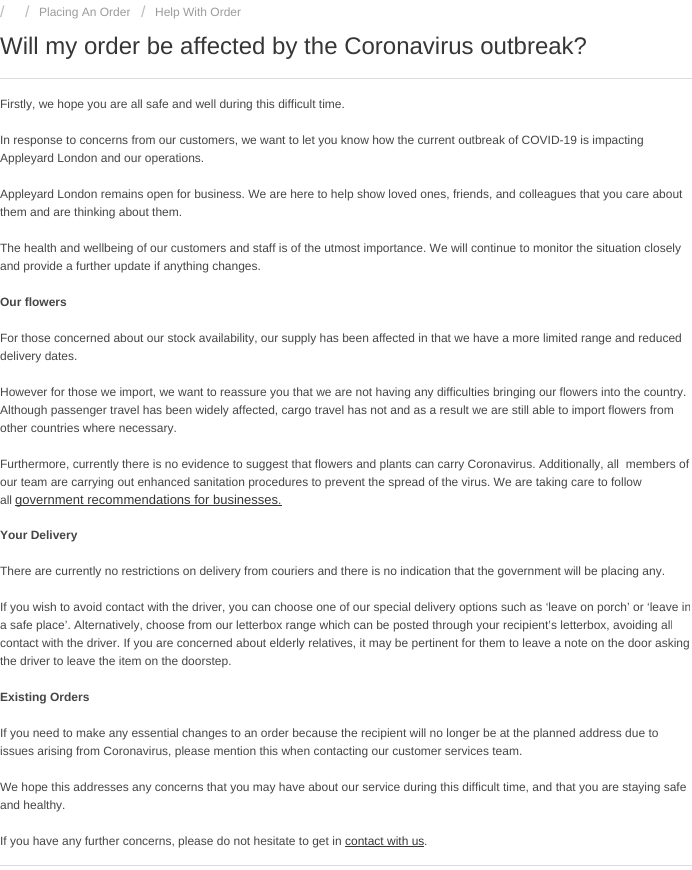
import math
import cairo

surface = cairo.ImageSurface(cairo.FORMAT_RGB24, 692, 870)
ctx = cairo.Context(surface)
options = cairo.FontOptions()
options.set_hint_metrics(cairo.HINT_METRICS_OFF)
options.set_hint_style(cairo.HINT_STYLE_NONE)
ctx.set_font_options(options)
ctx.set_miter_limit(4)


ctx.set_source_rgb(1, 1, 1)
ctx.paint()
ctx.select_font_face("Liberation Sans")
ctx.set_font_size(16)
ctx.set_source_rgb(0.733, 0.733, 0.733)
ctx.move_to(0, 17)
ctx.show_text("/")
ctx.move_to(25, 17)
ctx.show_text("/")
ctx.set_font_size(12)
ctx.set_source_rgb(0.608, 0.608, 0.608)
ctx.move_to(39, 16)
ctx.show_text("Placing An Order")
ctx.set_font_size(16)
ctx.set_source_rgb(0.733, 0.733, 0.733)
ctx.move_to(141, 17)
ctx.show_text("/")
ctx.set_font_size(12)
ctx.set_source_rgb(0.608, 0.608, 0.608)
ctx.move_to(155, 16)
ctx.show_text("Help With Order")
ctx.set_font_size(24)
ctx.set_source_rgb(0.212, 0.212, 0.212)
ctx.move_to(0, 54)
ctx.show_text("Will my order be affected by the Coronavirus outbreak?")
ctx.set_source_rgb(0.863, 0.863, 0.863)
ctx.rectangle(0, 78, 692, 1)
ctx.fill()
ctx.set_font_size(12)
ctx.set_source_rgb(0.271, 0.271, 0.271)
ctx.move_to(0, 108)
ctx.show_text("Firstly, we hope you are all safe and well during this difficult time.")
ctx.move_to(0, 144)
ctx.show_text("In response to concerns from our customers, we want to let you know how the current outbreak of COVID-19 is impacting")
ctx.move_to(0, 162)
ctx.show_text("Appleyard London and our operations.")
ctx.move_to(0, 198)
ctx.show_text("Appleyard London remains open for business. We are here to help show loved ones, friends, and colleagues that you care about")
ctx.move_to(0, 216)
ctx.show_text("them and are thinking about them.")
ctx.move_to(0, 252)
ctx.show_text("The health and wellbeing of our customers and staff is of the utmost importance. We will continue to monitor the situation closely")
ctx.move_to(0, 270)
ctx.show_text("and provide a further update if anything changes.")
ctx.select_font_face("Liberation Sans", cairo.FONT_SLANT_NORMAL, cairo.FONT_WEIGHT_BOLD)
ctx.move_to(0, 306)
ctx.show_text("Our flowers")
ctx.select_font_face("Liberation Sans")
ctx.move_to(0, 342)
ctx.show_text("For those concerned about our stock availability, our supply has been affected in that we have a more limited range and reduced")
ctx.move_to(0, 360)
ctx.show_text("delivery dates.")
ctx.move_to(0, 396)
ctx.show_text("However for those we import, we want to reassure you that we are not having any difficulties bringing our flowers into the country.")
ctx.move_to(0, 414)
ctx.show_text("Although passenger travel has been widely affected, cargo travel has not and as a result we are still able to import flowers from")
ctx.move_to(0, 432)
ctx.show_text("other countries where necessary.")
ctx.move_to(0, 468)
ctx.show_text("Furthermore, currently there is no evidence to suggest that flowers and plants can carry Coronavirus. Additionally, all  members of")
ctx.move_to(0, 486)
ctx.show_text("our team are carrying out enhanced sanitation procedures to prevent the spread of the virus. We are taking care to follow")
ctx.move_to(0, 504)
ctx.show_text("all")
ctx.set_source_rgb(0.212, 0.212, 0.212)
ctx.rectangle(15, 505, 267, 1)
ctx.fill()
ctx.set_font_size(13)
ctx.move_to(15, 504)
ctx.show_text("government recommendations for businesses")
ctx.set_font_size(12)
ctx.set_source_rgb(0.271, 0.271, 0.271)
ctx.move_to(278, 504)
ctx.show_text(".")
ctx.select_font_face("Liberation Sans", cairo.FONT_SLANT_NORMAL, cairo.FONT_WEIGHT_BOLD)
ctx.move_to(0, 539)
ctx.show_text("Your Delivery")
ctx.select_font_face("Liberation Sans")
ctx.move_to(0, 575)
ctx.show_text("There are currently no restrictions on delivery from couriers and there is no indication that the government will be placing any.")
ctx.move_to(0, 611)
ctx.show_text("If you wish to avoid contact with the driver, you can choose one of our special delivery options such as ‘leave on porch’ or ‘leave in")
ctx.move_to(0, 629)
ctx.show_text("a safe place’. Alternatively, choose from our letterbox range which can be posted through your recipient’s letterbox, avoiding all")
ctx.move_to(0, 647)
ctx.show_text("contact with the driver. If you are concerned about elderly relatives, it may be pertinent for them to leave a note on the door asking")
ctx.move_to(0, 665)
ctx.show_text("the driver to leave the item on the doorstep.")
ctx.select_font_face("Liberation Sans", cairo.FONT_SLANT_NORMAL, cairo.FONT_WEIGHT_BOLD)
ctx.move_to(0, 701)
ctx.show_text("Existing Orders")
ctx.select_font_face("Liberation Sans")
ctx.move_to(0, 737)
ctx.show_text("If you need to make any essential changes to an order because the recipient will no longer be at the planned address due to")
ctx.move_to(0, 755)
ctx.show_text("issues arising from Coronavirus, please mention this when contacting our customer services team.")
ctx.move_to(0, 791)
ctx.show_text("We hope this addresses any concerns that you may have about our service during this difficult time, and that you are staying safe")
ctx.move_to(0, 809)
ctx.show_text("and healthy.")
ctx.move_to(0, 845)
ctx.show_text("If you have any further concerns, please do not hesitate to get in")
ctx.set_source_rgb(0.212, 0.212, 0.212)
ctx.move_to(345, 845)
ctx.show_text("contact with us")
ctx.rectangle(345, 846, 79, 1)
ctx.fill()
ctx.set_source_rgb(0.271, 0.271, 0.271)
ctx.move_to(424, 845)
ctx.show_text(".")
ctx.set_source_rgb(0.863, 0.863, 0.863)
ctx.rectangle(0, 865, 692, 1)
ctx.fill()
surface.write_to_png("page.png")
